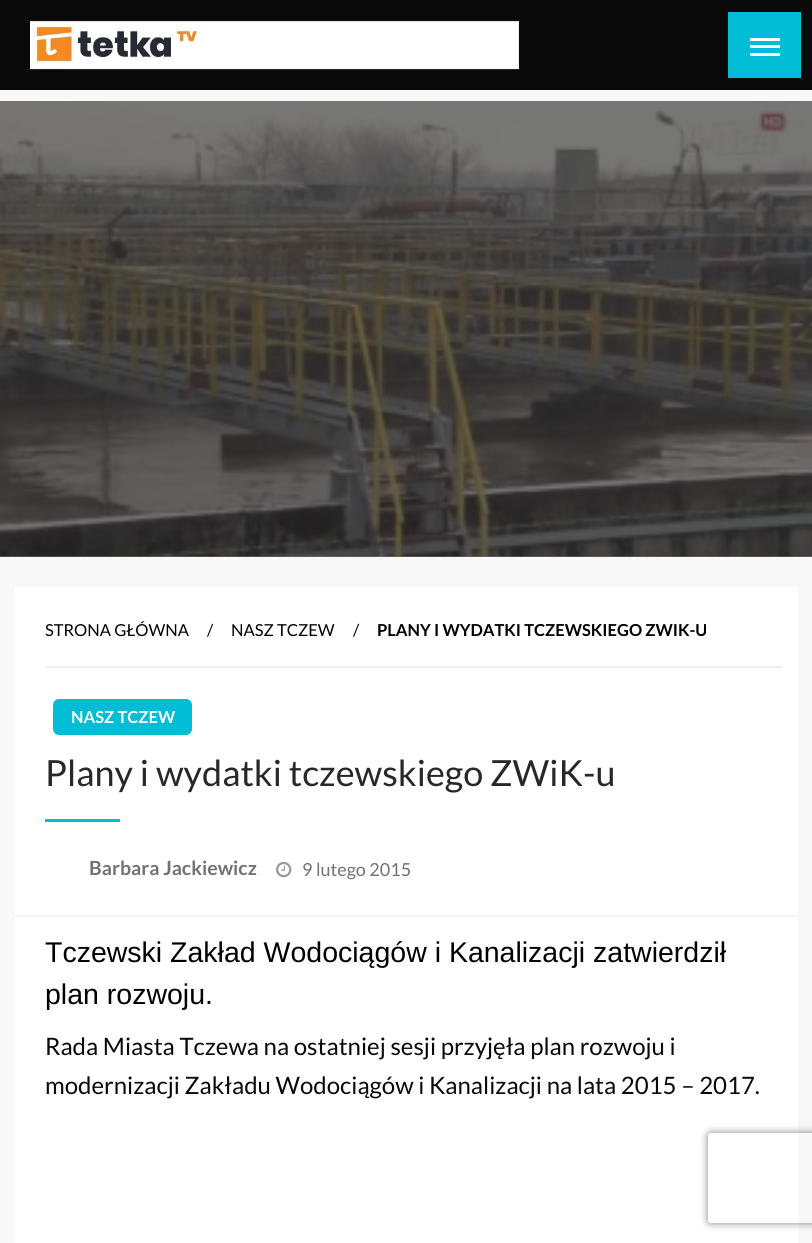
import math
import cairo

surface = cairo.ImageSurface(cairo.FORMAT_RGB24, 812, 1243)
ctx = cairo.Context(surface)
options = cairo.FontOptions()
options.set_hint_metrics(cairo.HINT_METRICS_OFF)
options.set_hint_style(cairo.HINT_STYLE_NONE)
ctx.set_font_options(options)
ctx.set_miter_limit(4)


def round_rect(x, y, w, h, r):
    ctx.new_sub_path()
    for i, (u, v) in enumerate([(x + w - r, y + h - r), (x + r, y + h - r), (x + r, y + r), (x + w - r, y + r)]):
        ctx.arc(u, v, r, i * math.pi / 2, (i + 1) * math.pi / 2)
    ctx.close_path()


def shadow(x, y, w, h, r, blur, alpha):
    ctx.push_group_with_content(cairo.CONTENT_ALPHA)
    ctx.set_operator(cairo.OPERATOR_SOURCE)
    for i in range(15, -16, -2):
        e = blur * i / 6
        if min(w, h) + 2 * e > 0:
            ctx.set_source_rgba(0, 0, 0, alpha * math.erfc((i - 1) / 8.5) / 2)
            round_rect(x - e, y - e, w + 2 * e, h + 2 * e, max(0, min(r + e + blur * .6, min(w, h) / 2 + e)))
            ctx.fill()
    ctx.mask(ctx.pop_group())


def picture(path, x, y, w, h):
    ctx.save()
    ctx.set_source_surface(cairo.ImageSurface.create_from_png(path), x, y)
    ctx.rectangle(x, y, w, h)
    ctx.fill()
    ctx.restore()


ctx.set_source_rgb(0.969, 0.969, 0.969)
ctx.paint()
ctx.set_source_rgb(0.455, 0.455, 0.455)
ctx.rectangle(0, 556, 812, 1)
ctx.fill()
ctx.set_source_rgb(0.039, 0.039, 0.039)
ctx.rectangle(0, 0, 812, 90)
ctx.fill()
picture("img1.png", 30, 20, 489, 50)
ctx.set_source_rgb(0, 0.737, 0.831)
ctx.rectangle(728, 12, 73, 66)
ctx.fill()
ctx.set_source_rgb(1, 1, 1)
ctx.rectangle(750, 38, 30, 3)
ctx.fill()
ctx.rectangle(750, 45, 30, 3)
ctx.fill()
ctx.rectangle(750, 53, 30, 3)
ctx.fill()
picture("img2.png", 0, 101, 812, 456)
ctx.rectangle(15, 587, 783, 328)
ctx.fill()
ctx.set_source_rgb(0.957, 0.957, 0.957)
ctx.rectangle(15, 915, 783, 2)
ctx.fill()
ctx.set_source_rgb(0.937, 0.937, 0.937)
ctx.rectangle(45, 666, 738, 2)
ctx.fill()
ctx.select_font_face("Lato")
ctx.set_font_size(16.5)
ctx.set_source_rgb(0, 0, 0)
ctx.move_to(45, 636)
ctx.show_text("STRONA GŁÓWNA")
ctx.move_to(207, 636)
ctx.show_text("/")
ctx.move_to(231, 636)
ctx.show_text("NASZ TCZEW")
ctx.move_to(353, 636)
ctx.show_text("/")
ctx.select_font_face("Lato", cairo.FONT_SLANT_NORMAL, cairo.FONT_WEIGHT_BOLD)
ctx.move_to(377, 636)
ctx.show_text("PLANY I WYDATKI TCZEWSKIEGO ZWIK-U")
ctx.set_source_rgb(0, 0.737, 0.831)
round_rect(53, 699, 139, 36, 6)
ctx.fill()
ctx.set_source_rgb(1, 1, 1)
ctx.move_to(71, 723)
ctx.show_text("NASZ TCZEW")
ctx.select_font_face("Lato")
ctx.set_font_size(36)
ctx.set_source_rgb(0.157, 0.157, 0.157)
ctx.move_to(45, 786)
ctx.show_text("Plany i wydatki tczewskiego ZWiK-u")
ctx.set_source_rgb(0, 0.737, 0.831)
ctx.rectangle(45, 819, 75, 3)
ctx.fill()
ctx.select_font_face("Lato", cairo.FONT_SLANT_NORMAL, cairo.FONT_WEIGHT_BOLD)
ctx.set_font_size(19.5)
ctx.set_source_rgb(0.451, 0.447, 0.447)
ctx.move_to(89, 875)
ctx.show_text("Barbara Jackiewicz")
picture("img3.png", 276, 861, 16, 17)
ctx.select_font_face("Lato")
ctx.set_font_size(18)
ctx.move_to(302, 876)
ctx.show_text("9 lutego 2015")
ctx.set_source_rgb(1, 1, 1)
ctx.rectangle(15, 917, 783, 326)
ctx.fill()
ctx.select_font_face("Liberation Sans")
ctx.set_font_size(28.5)
ctx.set_source_rgb(0, 0, 0)
ctx.move_to(45, 962)
ctx.show_text("Tczewski Zakład Wodociągów i Kanalizacji zatwierdził")
ctx.move_to(45, 1004)
ctx.show_text("plan rozwoju.")
ctx.select_font_face("Lato")
ctx.set_font_size(24)
ctx.set_source_rgb(0.039, 0.039, 0.039)
ctx.move_to(45, 1055)
ctx.show_text("Rada Miasta Tczewa na ostatniej sesji przyjęła plan rozwoju i")
ctx.move_to(45, 1094)
ctx.show_text("modernizacji Zakładu Wodociągów i Kanalizacji na lata 2015 – 2017.")
ctx.save()
ctx.set_fill_rule(cairo.FILL_RULE_EVEN_ODD)
ctx.new_path()
ctx.move_to(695, 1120)
ctx.line_to(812, 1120)
ctx.line_to(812, 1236)
ctx.line_to(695, 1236)
ctx.close_path()
ctx.move_to(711, 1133)
ctx.line_to(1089, 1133)
ctx.curve_to(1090.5, 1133, 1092, 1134.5, 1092, 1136)
ctx.line_to(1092, 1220)
ctx.curve_to(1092, 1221.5, 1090.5, 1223, 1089, 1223)
ctx.line_to(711, 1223)
ctx.curve_to(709.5, 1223, 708, 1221.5, 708, 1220)
ctx.line_to(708, 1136)
ctx.curve_to(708, 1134.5, 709.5, 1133, 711, 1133)
ctx.close_path()
ctx.clip()
ctx.set_source_rgb(0.502, 0.502, 0.502)
shadow(708, 1133, 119, 90, 3, 4, 1)
ctx.restore()
surface.write_to_png("page.png")
